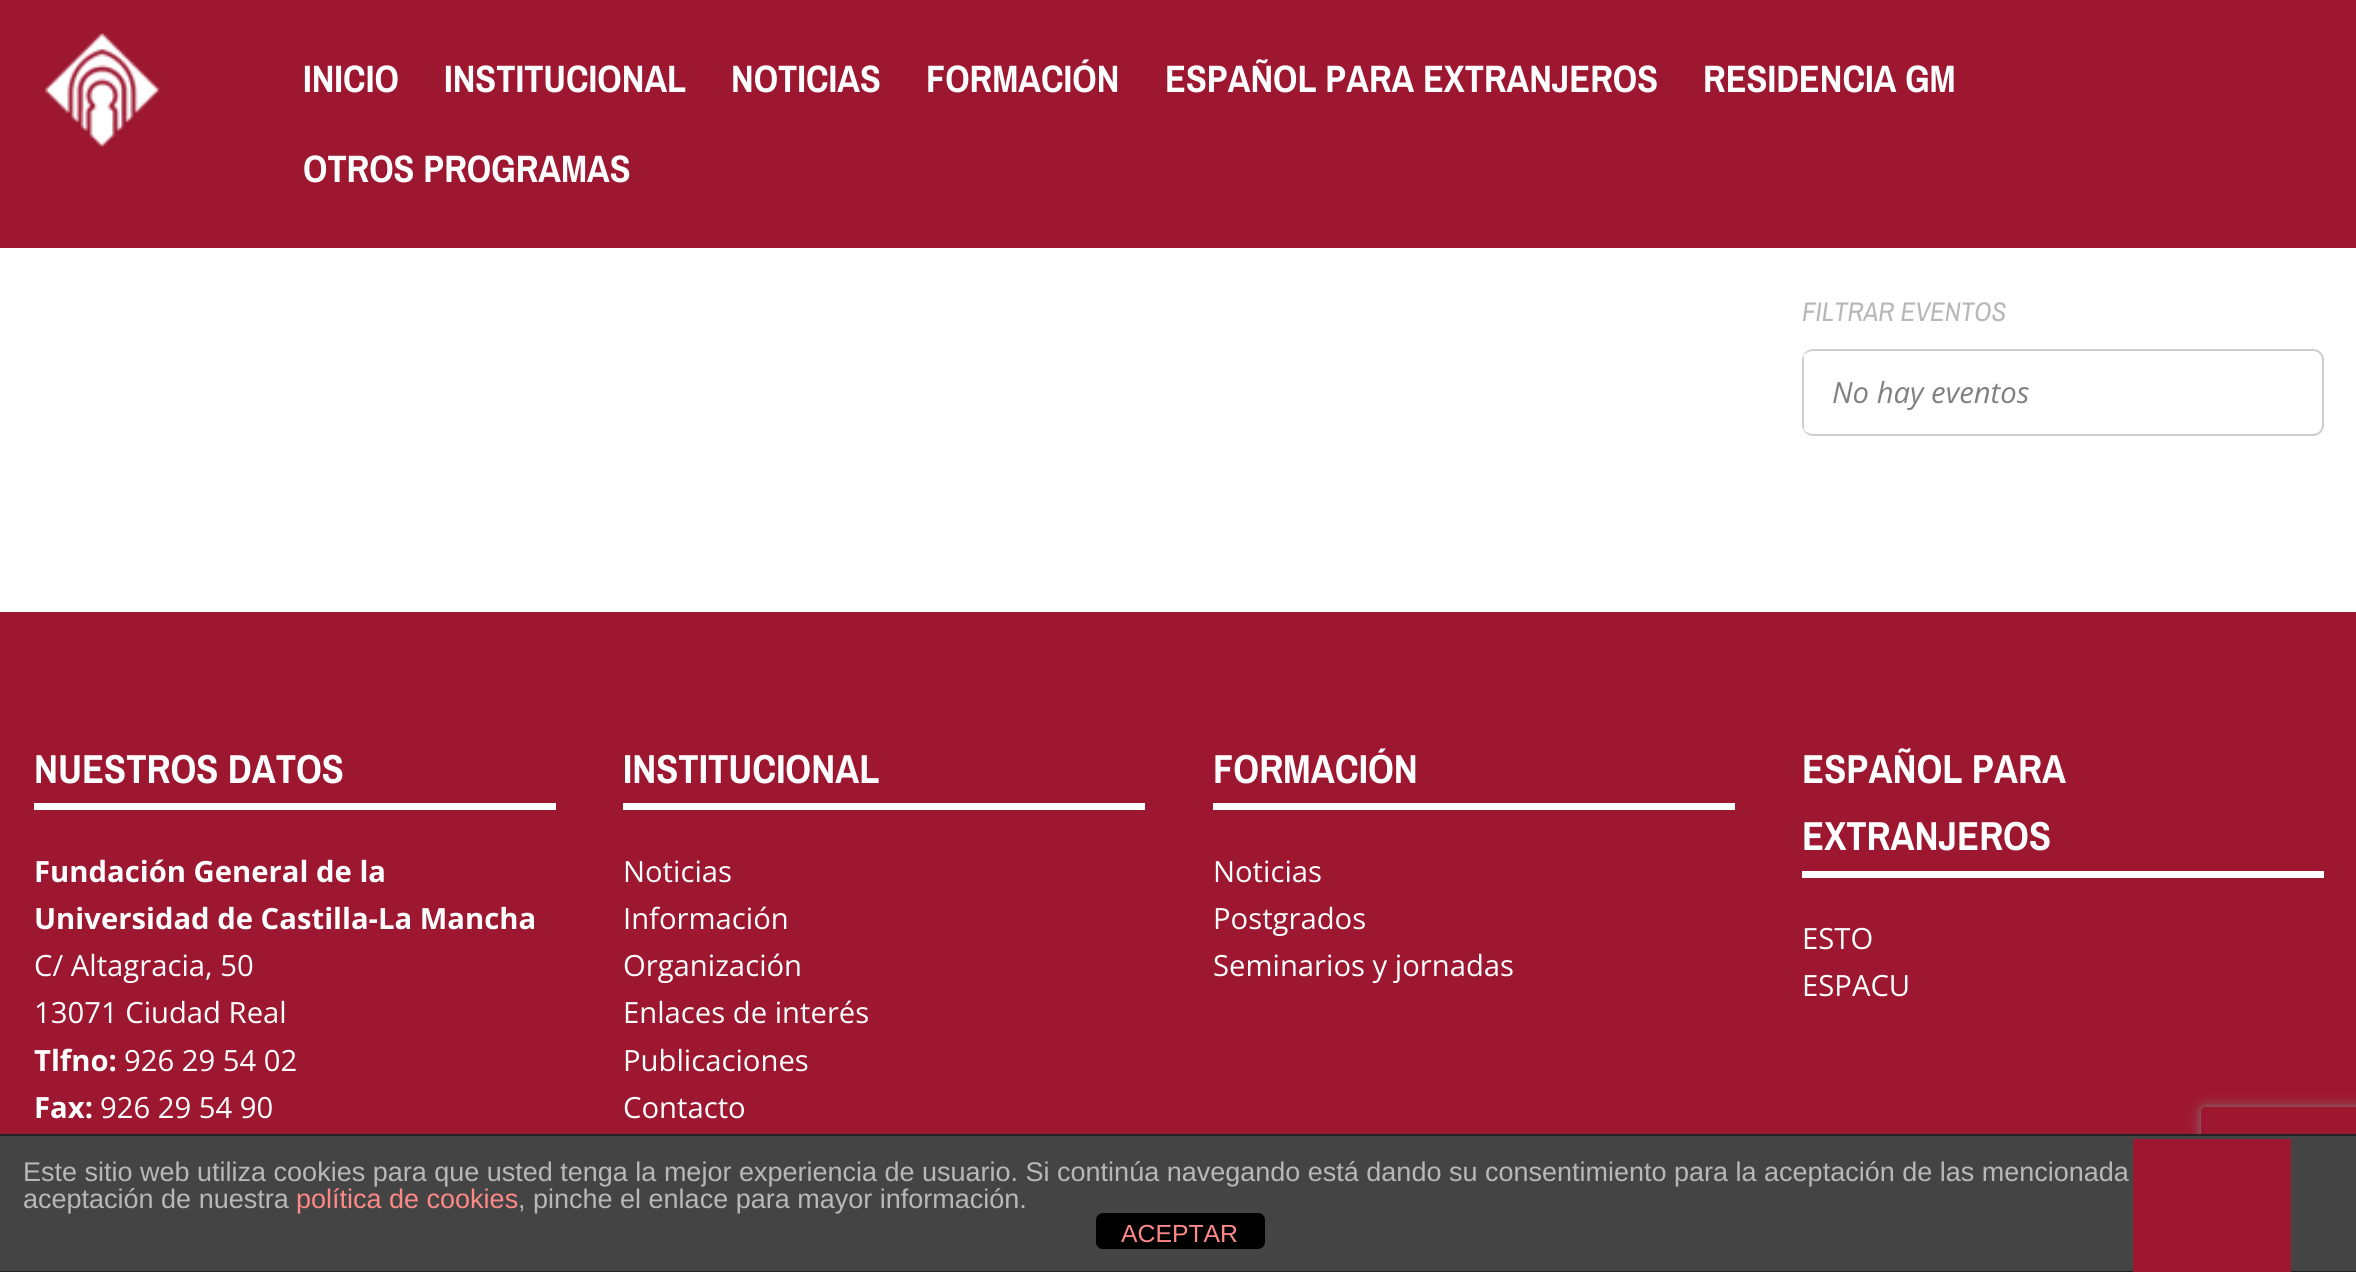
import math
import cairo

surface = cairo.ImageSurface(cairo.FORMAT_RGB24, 2356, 1272)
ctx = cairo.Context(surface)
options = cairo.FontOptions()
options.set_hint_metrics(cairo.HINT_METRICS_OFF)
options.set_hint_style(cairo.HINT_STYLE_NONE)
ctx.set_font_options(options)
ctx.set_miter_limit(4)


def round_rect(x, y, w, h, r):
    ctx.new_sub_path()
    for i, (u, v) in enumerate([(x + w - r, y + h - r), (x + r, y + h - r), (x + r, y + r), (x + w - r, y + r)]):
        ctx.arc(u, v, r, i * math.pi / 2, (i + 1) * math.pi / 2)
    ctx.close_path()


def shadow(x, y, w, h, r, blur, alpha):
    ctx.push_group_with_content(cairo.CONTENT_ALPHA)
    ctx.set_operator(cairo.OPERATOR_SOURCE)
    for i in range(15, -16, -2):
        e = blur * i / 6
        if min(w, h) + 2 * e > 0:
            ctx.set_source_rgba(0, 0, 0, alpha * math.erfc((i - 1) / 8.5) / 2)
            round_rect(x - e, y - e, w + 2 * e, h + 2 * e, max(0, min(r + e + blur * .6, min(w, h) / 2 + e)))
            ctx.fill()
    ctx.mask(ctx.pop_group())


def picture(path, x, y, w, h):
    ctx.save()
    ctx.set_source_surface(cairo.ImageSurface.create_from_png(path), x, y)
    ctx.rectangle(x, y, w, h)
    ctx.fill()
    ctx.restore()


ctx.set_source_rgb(1, 1, 1)
ctx.paint()
ctx.set_source_rgb(0.616, 0.09, 0.188)
ctx.rectangle(0, 0, 2356, 248)
ctx.fill()
picture("img1.png", 45, 33, 115, 114)
ctx.select_font_face("Archivo Narrow", cairo.FONT_SLANT_NORMAL, cairo.FONT_WEIGHT_BOLD)
ctx.set_font_size(38.25)
ctx.set_source_rgb(1, 1, 1)
ctx.move_to(303, 92)
ctx.show_text("INICIO")
ctx.move_to(444, 92)
ctx.show_text("INSTITUCIONAL")
ctx.move_to(731, 92)
ctx.show_text("NOTICIAS")
ctx.move_to(926, 92)
ctx.show_text("FORMACIÓN")
ctx.move_to(1165, 92)
ctx.show_text("ESPAÑOL PARA EXTRANJEROS")
ctx.move_to(1703, 92)
ctx.show_text("RESIDENCIA GM")
ctx.move_to(303, 182)
ctx.show_text("OTROS PROGRAMAS")
ctx.select_font_face("Archivo Narrow", cairo.FONT_SLANT_ITALIC)
ctx.set_font_size(27)
ctx.set_source_rgb(0.722, 0.722, 0.722)
ctx.move_to(1802, 321)
ctx.show_text("FILTRAR EVENTOS")
ctx.set_source_rgb(0.804, 0.804, 0.804)
ctx.set_fill_rule(cairo.FILL_RULE_EVEN_ODD)
ctx.new_path()
ctx.move_to(1814, 349)
ctx.line_to(2313, 349)
ctx.curve_to(2319, 349, 2324, 354, 2324, 360)
ctx.line_to(2324, 425)
ctx.curve_to(2324, 431, 2319, 436, 2313, 436)
ctx.line_to(1814, 436)
ctx.curve_to(1807, 436, 1802, 431, 1802, 425)
ctx.line_to(1802, 360)
ctx.curve_to(1802, 354, 1807, 349, 1814, 349)
ctx.close_path()
ctx.move_to(1814, 351)
ctx.line_to(2313, 351)
ctx.curve_to(2318, 351, 2322, 355, 2322, 360)
ctx.line_to(2322, 425)
ctx.curve_to(2322, 430, 2318, 434, 2313, 434)
ctx.line_to(1814, 434)
ctx.curve_to(1807, 434, 1802, 430, 1802, 425)
ctx.line_to(1802, 360)
ctx.curve_to(1802, 355, 1807, 351, 1814, 351)
ctx.close_path()
ctx.fill()
ctx.set_fill_rule(cairo.FILL_RULE_WINDING)
ctx.new_path()
ctx.move_to(1804, 355)
ctx.line_to(1804, 430)
ctx.curve_to(1803, 429, 1802, 427, 1802, 425)
ctx.line_to(1802, 360)
ctx.curve_to(1802, 358, 1803, 357, 1804, 355)
ctx.close_path()
ctx.fill()
ctx.select_font_face("Open Sans", cairo.FONT_SLANT_ITALIC)
ctx.set_font_size(29.25)
ctx.set_source_rgb(0.502, 0.502, 0.502)
ctx.move_to(1832, 403)
ctx.show_text("No hay eventos")
ctx.set_source_rgb(0.616, 0.09, 0.188)
ctx.rectangle(0, 612, 2356, 522)
ctx.fill()
ctx.set_source_rgb(1, 1, 1)
ctx.rectangle(34, 803, 522, 7)
ctx.fill()
ctx.select_font_face("Archivo Narrow", cairo.FONT_SLANT_NORMAL, cairo.FONT_WEIGHT_BOLD)
ctx.set_font_size(40.5)
ctx.move_to(34, 783)
ctx.show_text("NUESTROS DATOS")
ctx.select_font_face("Open Sans", cairo.FONT_SLANT_NORMAL, cairo.FONT_WEIGHT_BOLD)
ctx.set_font_size(29.25)
ctx.move_to(34, 882)
ctx.show_text("Fundación General de la")
ctx.move_to(34, 929)
ctx.show_text("Universidad de Castilla-La Mancha")
ctx.select_font_face("Open Sans")
ctx.move_to(34, 976)
ctx.show_text("C/ Altagracia, 50")
ctx.move_to(34, 1023)
ctx.show_text("13071 Ciudad Real")
ctx.select_font_face("Open Sans", cairo.FONT_SLANT_NORMAL, cairo.FONT_WEIGHT_BOLD)
ctx.move_to(34, 1071)
ctx.show_text("Tlfno:")
ctx.select_font_face("Open Sans")
ctx.move_to(124, 1071)
ctx.show_text("926 29 54 02")
ctx.select_font_face("Open Sans", cairo.FONT_SLANT_NORMAL, cairo.FONT_WEIGHT_BOLD)
ctx.move_to(34, 1118)
ctx.show_text("Fax:")
ctx.select_font_face("Open Sans")
ctx.move_to(100, 1118)
ctx.show_text("926 29 54 90")
ctx.rectangle(623, 803, 522, 7)
ctx.fill()
ctx.select_font_face("Archivo Narrow", cairo.FONT_SLANT_NORMAL, cairo.FONT_WEIGHT_BOLD)
ctx.set_font_size(40.5)
ctx.move_to(623, 783)
ctx.show_text("INSTITUCIONAL")
ctx.select_font_face("Open Sans")
ctx.set_font_size(29.25)
ctx.move_to(623, 882)
ctx.show_text("Noticias")
ctx.move_to(623, 929)
ctx.show_text("Información")
ctx.move_to(623, 976)
ctx.show_text("Organización")
ctx.move_to(623, 1023)
ctx.show_text("Enlaces de interés")
ctx.move_to(623, 1071)
ctx.show_text("Publicaciones")
ctx.move_to(623, 1118)
ctx.show_text("Contacto")
ctx.rectangle(1213, 803, 522, 7)
ctx.fill()
ctx.select_font_face("Archivo Narrow", cairo.FONT_SLANT_NORMAL, cairo.FONT_WEIGHT_BOLD)
ctx.set_font_size(40.5)
ctx.move_to(1213, 783)
ctx.show_text("FORMACIÓN")
ctx.select_font_face("Open Sans")
ctx.set_font_size(29.25)
ctx.move_to(1213, 882)
ctx.show_text("Noticias")
ctx.move_to(1213, 929)
ctx.show_text("Postgrados")
ctx.move_to(1213, 976)
ctx.show_text("Seminarios y jornadas")
ctx.rectangle(1802, 871, 522, 7)
ctx.fill()
ctx.select_font_face("Archivo Narrow", cairo.FONT_SLANT_NORMAL, cairo.FONT_WEIGHT_BOLD)
ctx.set_font_size(40.5)
ctx.move_to(1802, 783)
ctx.show_text("ESPAÑOL PARA")
ctx.move_to(1802, 850)
ctx.show_text("EXTRANJEROS")
ctx.select_font_face("Open Sans")
ctx.set_font_size(29.25)
ctx.move_to(1802, 949)
ctx.show_text("ESTO")
ctx.move_to(1802, 996)
ctx.show_text("ESPACU")
ctx.save()
ctx.set_fill_rule(cairo.FILL_RULE_EVEN_ODD)
ctx.new_path()
ctx.move_to(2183, 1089)
ctx.line_to(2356, 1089)
ctx.line_to(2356, 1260)
ctx.line_to(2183, 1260)
ctx.close_path()
ctx.move_to(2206, 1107)
ctx.line_to(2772, 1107)
ctx.curve_to(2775, 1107, 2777, 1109, 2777, 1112)
ctx.line_to(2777, 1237)
ctx.curve_to(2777, 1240, 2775, 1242, 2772, 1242)
ctx.line_to(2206, 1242)
ctx.curve_to(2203, 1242, 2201, 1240, 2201, 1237)
ctx.line_to(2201, 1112)
ctx.curve_to(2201, 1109, 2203, 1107, 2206, 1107)
ctx.close_path()
ctx.clip()
ctx.set_source_rgb(0.502, 0.502, 0.502)
shadow(2201, 1107, 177, 135, 5, 5.5, 1)
ctx.restore()
ctx.set_source_rgb(0.267, 0.267, 0.267)
ctx.rectangle(0, 1136, 2356, 135)
ctx.fill()
ctx.set_source_rgb(0.133, 0.133, 0.133)
ctx.rectangle(0, 1134, 2356, 2)
ctx.fill()
ctx.rectangle(0, 1271, 2356, 1)
ctx.fill()
ctx.select_font_face("Liberation Sans")
ctx.set_font_size(27)
ctx.set_source_rgb(0.722, 0.722, 0.722)
ctx.move_to(23, 1181)
ctx.show_text("Este sitio web utiliza cookies para que usted tenga la mejor experiencia de usuario. Si continúa navegando está dando su consentimiento para la aceptación de las mencionada")
ctx.move_to(23, 1208)
ctx.show_text("aceptación de nuestra")
ctx.set_source_rgb(1, 0.533, 0.533)
ctx.move_to(296, 1208)
ctx.show_text("política de cookies")
ctx.set_source_rgb(0.722, 0.722, 0.722)
ctx.move_to(518, 1208)
ctx.show_text(", pinche el enlace para mayor información.")
ctx.set_source_rgb(0, 0, 0)
round_rect(1096, 1213, 169, 36, 7)
ctx.fill()
ctx.set_font_size(24.75)
ctx.set_source_rgb(1, 0.533, 0.533)
ctx.move_to(1121, 1242)
ctx.show_text("ACEPTAR")
ctx.set_source_rgb(0.616, 0.09, 0.188)
ctx.rectangle(2133, 1139, 158, 133)
ctx.fill()
surface.write_to_png("page.png")
